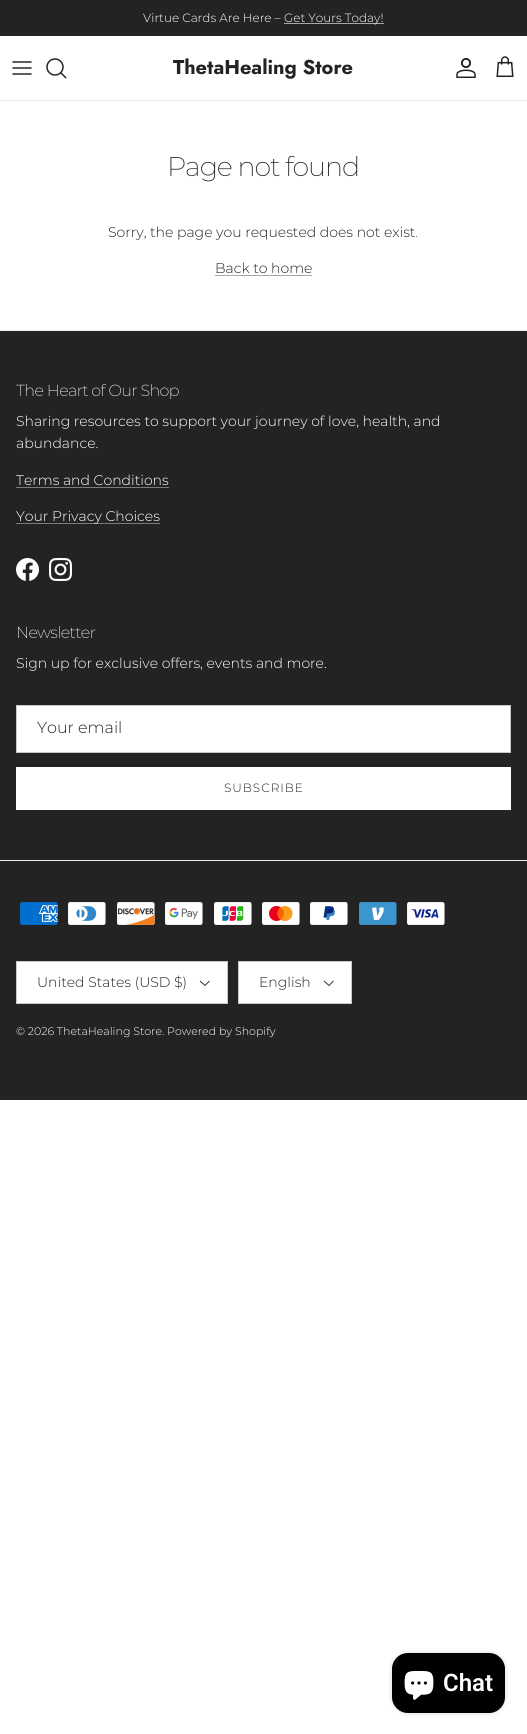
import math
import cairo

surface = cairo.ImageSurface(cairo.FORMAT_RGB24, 527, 1734)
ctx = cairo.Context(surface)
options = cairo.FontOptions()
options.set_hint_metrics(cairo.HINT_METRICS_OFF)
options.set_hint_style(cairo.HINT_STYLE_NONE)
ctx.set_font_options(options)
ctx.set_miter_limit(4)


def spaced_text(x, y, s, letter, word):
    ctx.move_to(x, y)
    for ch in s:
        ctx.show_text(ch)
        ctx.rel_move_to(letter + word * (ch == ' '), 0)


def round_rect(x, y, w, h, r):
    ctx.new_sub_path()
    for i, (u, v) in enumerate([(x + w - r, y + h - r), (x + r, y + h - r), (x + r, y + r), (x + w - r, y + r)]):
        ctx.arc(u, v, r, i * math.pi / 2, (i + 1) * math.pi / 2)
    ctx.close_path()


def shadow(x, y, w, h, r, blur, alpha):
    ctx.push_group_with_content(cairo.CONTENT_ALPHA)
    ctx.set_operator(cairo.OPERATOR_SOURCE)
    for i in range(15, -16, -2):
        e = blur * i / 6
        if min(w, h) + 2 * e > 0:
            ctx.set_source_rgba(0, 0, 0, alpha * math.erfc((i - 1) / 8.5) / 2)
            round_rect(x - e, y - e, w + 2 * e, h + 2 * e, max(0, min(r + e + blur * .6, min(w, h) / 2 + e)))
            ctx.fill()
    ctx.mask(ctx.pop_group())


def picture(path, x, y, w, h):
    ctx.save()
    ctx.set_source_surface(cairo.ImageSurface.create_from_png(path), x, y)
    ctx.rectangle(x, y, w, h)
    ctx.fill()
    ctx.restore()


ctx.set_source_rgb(1, 1, 1)
ctx.paint()
ctx.set_source_rgb(0.137, 0.137, 0.137)
ctx.rectangle(0, 0, 527, 36)
ctx.fill()
ctx.select_font_face("Montserrat Light")
ctx.set_font_size(12)
ctx.set_source_rgb(1, 1, 1)
ctx.move_to(143, 22)
ctx.show_text("Virtue Cards Are Here –")
ctx.set_source_rgb(0.655, 0.655, 0.655)
ctx.rectangle(284, 23, 100, 1)
ctx.fill()
ctx.set_source_rgb(1, 1, 1)
ctx.move_to(284, 22)
ctx.show_text("Get Yours Today!")
ctx.set_source_rgb(0.925, 0.925, 0.925)
ctx.rectangle(0, 100, 527, 1)
ctx.fill()
ctx.new_path()
ctx.move_to(13, 68)
ctx.line_to(31, 68)
ctx.move_to(13, 62)
ctx.line_to(31, 62)
ctx.move_to(13, 74)
ctx.line_to(31, 74)
ctx.set_source_rgb(0.137, 0.137, 0.137)
ctx.set_line_width(1.5)
ctx.set_line_cap(cairo.LINE_CAP_ROUND)
ctx.set_line_join(cairo.LINE_JOIN_ROUND)
ctx.stroke()
ctx.arc(55, 67, 8, 0, 2 * math.pi)
ctx.set_line_cap(cairo.LINE_CAP_BUTT)
ctx.set_line_join(cairo.LINE_JOIN_MITER)
ctx.stroke()
ctx.new_path()
ctx.move_to(61, 73)
ctx.line_to(65.5, 77.5)
ctx.set_line_cap(cairo.LINE_CAP_SQUARE)
ctx.stroke()
ctx.select_font_face("Jost", cairo.FONT_SLANT_NORMAL, cairo.FONT_WEIGHT_BOLD)
ctx.set_font_size(20)
ctx.move_to(173, 74)
ctx.show_text("ThetaHealing Store")
picture("img1.png", 456, 58, 20, 20)
picture("img2.png", 496, 56, 18, 21)
ctx.select_font_face("Montserrat ExtraLight")
ctx.set_font_size(27)
spaced_text(167, 176, "Page not found", -1.1, 0)
ctx.select_font_face("Montserrat Light")
ctx.set_font_size(14)
ctx.move_to(108, 237)
ctx.show_text("Sorry, the page you requested does not exist.")
ctx.move_to(215, 273)
ctx.show_text("Back to home")
ctx.set_source_rgb(0.655, 0.655, 0.655)
ctx.rectangle(215, 275, 97, 1)
ctx.fill()
ctx.set_source_rgb(0.137, 0.137, 0.137)
ctx.rectangle(0, 331, 527, 769)
ctx.fill()
ctx.set_source_rgb(0.925, 0.925, 0.925)
ctx.rectangle(0, 330, 527, 1)
ctx.fill()
ctx.select_font_face("Montserrat ExtraLight")
ctx.set_font_size(16)
ctx.set_source_rgb(1, 1, 1)
spaced_text(16, 396, "The Heart of Our Shop", -0.6, 0)
ctx.select_font_face("Montserrat Light")
ctx.set_font_size(14)
ctx.move_to(16, 426)
ctx.show_text("Sharing resources to support your journey of love, health, and")
ctx.move_to(16, 448)
ctx.show_text("abundance.")
ctx.move_to(16, 485)
ctx.show_text("Terms and Conditions")
ctx.set_source_rgb(0.482, 0.482, 0.482)
ctx.rectangle(16, 487, 153, 1)
ctx.fill()
ctx.rectangle(16, 523, 144, 1)
ctx.fill()
ctx.set_source_rgb(1, 1, 1)
ctx.move_to(16, 521)
ctx.show_text("Your Privacy Choices")
picture("img3.png", 16, 558, 23, 23)
picture("img4.png", 49, 558, 23, 23)
ctx.select_font_face("Montserrat ExtraLight")
ctx.set_font_size(16)
spaced_text(16, 638, "Newsletter", -0.6, 0)
ctx.select_font_face("Montserrat Light")
ctx.set_font_size(14)
ctx.move_to(16, 668)
ctx.show_text("Sign up for exclusive offers, events and more.")
ctx.rectangle(16.5, 705.5, 494, 47)
ctx.fill_preserve()
ctx.set_source_rgb(0.784, 0.784, 0.784)
ctx.set_line_width(1)
ctx.set_line_cap(cairo.LINE_CAP_BUTT)
ctx.stroke()
ctx.set_font_size(16)
ctx.set_source_rgb(0.137, 0.137, 0.137)
ctx.move_to(37, 733)
ctx.show_text("Your email")
ctx.set_source_rgb(1, 1, 1)
ctx.rectangle(16, 767, 495, 43)
ctx.fill()
ctx.set_font_size(12)
ctx.set_source_rgb(0.137, 0.137, 0.137)
spaced_text(224, 792, "SUBSCRIBE", 1, 0)
ctx.set_source_rgb(0.925, 0.925, 0.925)
ctx.rectangle(0, 860, 527, 1)
ctx.fill()
picture("img5.png", 20, 902, 38, 23)
picture("img6.png", 68, 902, 38, 23)
picture("img7.png", 117, 902, 38, 23)
picture("img8.png", 165, 902, 38, 23)
picture("img9.png", 214, 902, 38, 23)
picture("img10.png", 262, 902, 38, 23)
picture("img11.png", 310, 902, 38, 23)
picture("img12.png", 359, 902, 38, 23)
picture("img13.png", 407, 902, 38, 23)
ctx.set_source_rgb(1, 1, 1)
ctx.rectangle(16.5, 961.5, 211, 42)
ctx.fill_preserve()
ctx.set_source_rgb(0.784, 0.784, 0.784)
ctx.stroke()
ctx.set_font_size(14)
ctx.set_source_rgb(0.137, 0.137, 0.137)
ctx.move_to(37, 987)
ctx.show_text("United States (USD $)")
ctx.new_path()
ctx.move_to(209.5, 981)
ctx.line_to(205, 985.5)
ctx.line_to(200, 981)
ctx.set_line_width(0.9)
ctx.stroke()
ctx.set_source_rgb(1, 1, 1)
ctx.rectangle(238.5, 961.5, 113, 42)
ctx.fill_preserve()
ctx.set_source_rgb(0.784, 0.784, 0.784)
ctx.set_line_width(1)
ctx.stroke()
ctx.set_source_rgb(0.137, 0.137, 0.137)
ctx.move_to(259, 987)
ctx.show_text("English")
ctx.new_path()
ctx.move_to(333.5, 981)
ctx.line_to(329, 985.5)
ctx.line_to(324, 981)
ctx.set_line_width(0.9)
ctx.stroke()
ctx.set_font_size(11)
ctx.set_source_rgb(1, 1, 1)
ctx.move_to(16, 1035)
ctx.show_text("© 2026 ThetaHealing Store. Powered by Shopify")
ctx.set_source_rgb(0, 0, 0)
shadow(392, 1653, 113, 60, 16, 2.5, 0.15)
ctx.set_source_rgb(0, 0, 0)
round_rect(392, 1653, 113, 60, 16)
ctx.fill()
picture("img14.png", 404, 1671, 30, 29)
ctx.select_font_face("Roboto SemiBold")
ctx.set_font_size(24)
ctx.set_source_rgb(1, 1, 1)
ctx.move_to(443, 1691)
ctx.show_text("Chat")
surface.write_to_png("page.png")
